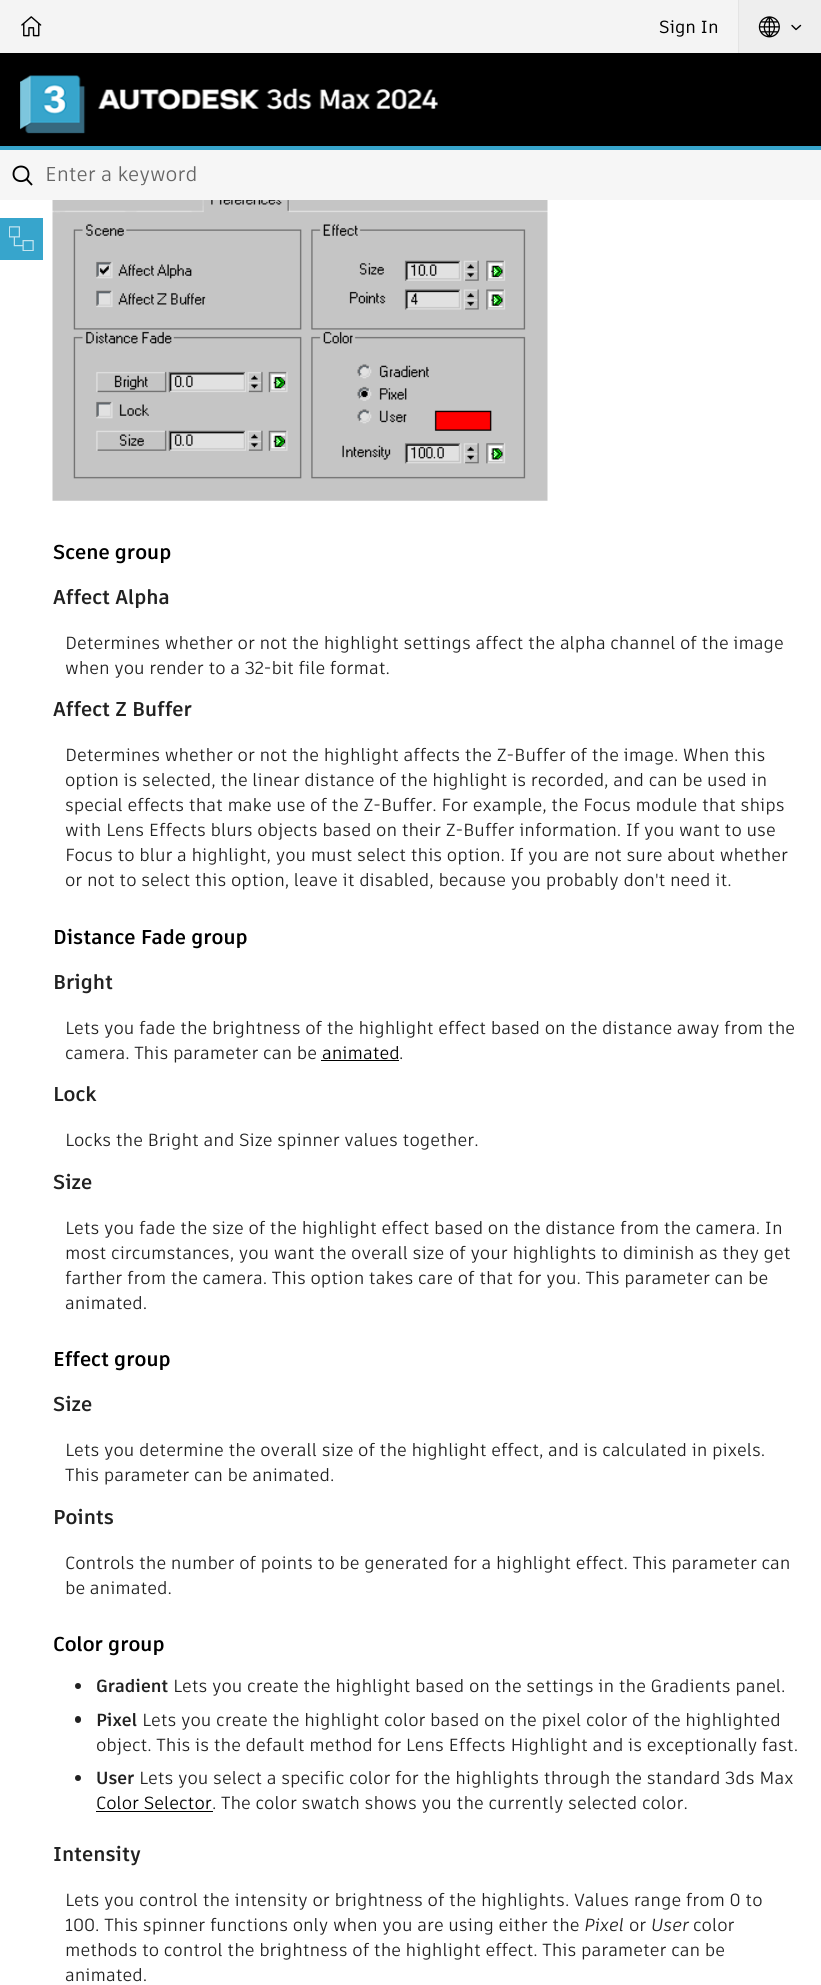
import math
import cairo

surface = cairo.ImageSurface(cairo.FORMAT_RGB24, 821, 1985)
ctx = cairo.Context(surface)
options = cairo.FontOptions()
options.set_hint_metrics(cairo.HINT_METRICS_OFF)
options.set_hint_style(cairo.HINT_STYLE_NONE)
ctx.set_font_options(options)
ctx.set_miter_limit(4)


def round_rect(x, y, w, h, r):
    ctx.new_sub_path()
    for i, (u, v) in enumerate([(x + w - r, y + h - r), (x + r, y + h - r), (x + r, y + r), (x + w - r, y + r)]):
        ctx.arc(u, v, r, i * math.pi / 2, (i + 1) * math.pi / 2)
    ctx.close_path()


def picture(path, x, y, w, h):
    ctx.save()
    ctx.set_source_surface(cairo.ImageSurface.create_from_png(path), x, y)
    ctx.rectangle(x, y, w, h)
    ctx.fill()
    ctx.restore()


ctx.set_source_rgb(1, 1, 1)
ctx.paint()
ctx.set_source_rgb(0.957, 0.957, 0.957)
ctx.rectangle(0, 0, 738, 53)
ctx.fill()
picture("img1.png", 21, 16, 21, 21)
ctx.select_font_face("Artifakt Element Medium")
ctx.set_font_size(17.5)
ctx.set_source_rgb(0, 0, 0)
ctx.move_to(659, 33)
ctx.show_text("Sign In")
ctx.set_source_rgb(0.933, 0.933, 0.933)
ctx.rectangle(739, 0, 82, 53)
ctx.fill()
ctx.set_source_rgb(0.894, 0.894, 0.894)
ctx.rectangle(738, 0, 1, 53)
ctx.fill()
picture("img2.png", 758, 16, 22, 22)
ctx.new_path()
ctx.move_to(800.5, 25.5)
ctx.line_to(796, 29.5)
ctx.line_to(792, 25.5)
ctx.set_source_rgb(0, 0, 0)
ctx.set_line_width(1.4)
ctx.set_line_cap(cairo.LINE_CAP_ROUND)
ctx.set_line_join(cairo.LINE_JOIN_ROUND)
ctx.stroke()
ctx.rectangle(0, 53, 821, 93)
ctx.fill()
ctx.set_source_rgb(0.216, 0.647, 0.8)
ctx.rectangle(0, 146, 821, 4)
ctx.fill()
picture("img3.png", 20, 75, 418, 59)
ctx.set_source_rgb(0.961, 0.961, 0.961)
ctx.rectangle(0, 150, 821, 50)
ctx.fill()
ctx.new_path()
ctx.move_to(26.5, 179)
ctx.line_to(32, 185)
ctx.move_to(28.5, 174)
ctx.curve_to(28.5, 183.5, 13.5, 183.5, 13.5, 174)
ctx.curve_to(13.5, 164, 28.5, 164, 28.5, 174)
ctx.close_path()
ctx.set_source_rgb(0, 0, 0)
ctx.set_line_width(1.9)
ctx.set_line_cap(cairo.LINE_CAP_BUTT)
ctx.set_line_join(cairo.LINE_JOIN_MITER)
ctx.stroke()
ctx.select_font_face("Artifakt Element")
ctx.set_font_size(20)
ctx.set_source_rgb(0.4, 0.4, 0.4)
ctx.move_to(45, 181)
ctx.show_text("Enter a keyword")
ctx.set_source_rgb(0.216, 0.647, 0.8)
ctx.rectangle(0, 218, 43, 42)
ctx.fill()
picture("img4.png", 9, 226, 25, 25)
picture("img5.png", 52, 200, 496, 301)
ctx.select_font_face("Artifakt Element", cairo.FONT_SLANT_NORMAL, cairo.FONT_WEIGHT_BOLD)
ctx.set_source_rgb(0, 0, 0)
ctx.move_to(53, 559)
ctx.show_text("Scene group")
ctx.set_source_rgb(0.129, 0.129, 0.129)
ctx.move_to(53, 604)
ctx.show_text("Affect Alpha")
ctx.select_font_face("Artifakt Element")
ctx.set_font_size(17.5)
ctx.move_to(65, 649)
ctx.show_text("Determines whether or not the highlight settings affect the alpha channel of the image")
ctx.move_to(65, 674)
ctx.show_text("when you render to a 32-bit file format.")
ctx.select_font_face("Artifakt Element", cairo.FONT_SLANT_NORMAL, cairo.FONT_WEIGHT_BOLD)
ctx.set_font_size(20)
ctx.move_to(53, 716)
ctx.show_text("Affect Z Buffer")
ctx.select_font_face("Artifakt Element")
ctx.set_font_size(17.5)
ctx.move_to(65, 761)
ctx.show_text("Determines whether or not the highlight affects the Z-Buffer of the image. When this")
ctx.move_to(65, 786)
ctx.show_text("option is selected, the linear distance of the highlight is recorded, and can be used in")
ctx.move_to(65, 811)
ctx.show_text("special effects that make use of the Z-Buffer. For example, the Focus module that ships")
ctx.move_to(65, 836)
ctx.show_text("with Lens Effects blurs objects based on their Z-Buffer information. If you want to use")
ctx.move_to(65, 861)
ctx.show_text("Focus to blur a highlight, you must select this option. If you are not sure about whether")
ctx.move_to(65, 886)
ctx.show_text("or not to select this option, leave it disabled, because you probably don't need it.")
ctx.select_font_face("Artifakt Element", cairo.FONT_SLANT_NORMAL, cairo.FONT_WEIGHT_BOLD)
ctx.set_font_size(20)
ctx.set_source_rgb(0, 0, 0)
ctx.move_to(53, 944)
ctx.show_text("Distance Fade group")
ctx.set_source_rgb(0.129, 0.129, 0.129)
ctx.move_to(53, 989)
ctx.show_text("Bright")
ctx.select_font_face("Artifakt Element")
ctx.set_font_size(17.5)
ctx.move_to(65, 1034)
ctx.show_text("Lets you fade the brightness of the highlight effect based on the distance away from the")
ctx.move_to(65, 1059)
ctx.show_text("camera. This parameter can be")
ctx.set_source_rgb(0, 0, 0)
ctx.move_to(322, 1059)
ctx.show_text("animated")
ctx.rectangle(321, 1060, 78, 1)
ctx.fill()
ctx.set_source_rgb(0.129, 0.129, 0.129)
ctx.move_to(399, 1059)
ctx.show_text(".")
ctx.select_font_face("Artifakt Element", cairo.FONT_SLANT_NORMAL, cairo.FONT_WEIGHT_BOLD)
ctx.set_font_size(20)
ctx.move_to(53, 1101)
ctx.show_text("Lock")
ctx.select_font_face("Artifakt Element")
ctx.set_font_size(17.5)
ctx.move_to(65, 1146)
ctx.show_text("Locks the Bright and Size spinner values together.")
ctx.select_font_face("Artifakt Element", cairo.FONT_SLANT_NORMAL, cairo.FONT_WEIGHT_BOLD)
ctx.set_font_size(20)
ctx.move_to(53, 1189)
ctx.show_text("Size")
ctx.select_font_face("Artifakt Element")
ctx.set_font_size(17.5)
ctx.move_to(65, 1234)
ctx.show_text("Lets you fade the size of the highlight effect based on the distance from the camera. In")
ctx.move_to(65, 1259)
ctx.show_text("most circumstances, you want the overall size of your highlights to diminish as they get")
ctx.move_to(65, 1284)
ctx.show_text("farther from the camera. This option takes care of that for you. This parameter can be")
ctx.move_to(65, 1309)
ctx.show_text("animated.")
ctx.select_font_face("Artifakt Element", cairo.FONT_SLANT_NORMAL, cairo.FONT_WEIGHT_BOLD)
ctx.set_font_size(20)
ctx.set_source_rgb(0, 0, 0)
ctx.move_to(53, 1366)
ctx.show_text("Effect group")
ctx.set_source_rgb(0.129, 0.129, 0.129)
ctx.move_to(53, 1411)
ctx.show_text("Size")
ctx.select_font_face("Artifakt Element")
ctx.set_font_size(17.5)
ctx.move_to(65, 1456)
ctx.show_text("Lets you determine the overall size of the highlight effect, and is calculated in pixels.")
ctx.move_to(65, 1481)
ctx.show_text("This parameter can be animated.")
ctx.select_font_face("Artifakt Element", cairo.FONT_SLANT_NORMAL, cairo.FONT_WEIGHT_BOLD)
ctx.set_font_size(20)
ctx.move_to(53, 1524)
ctx.show_text("Points")
ctx.select_font_face("Artifakt Element")
ctx.set_font_size(17.5)
ctx.move_to(65, 1569)
ctx.show_text("Controls the number of points to be generated for a highlight effect. This parameter can")
ctx.move_to(65, 1594)
ctx.show_text("be animated.")
ctx.select_font_face("Artifakt Element", cairo.FONT_SLANT_NORMAL, cairo.FONT_WEIGHT_BOLD)
ctx.set_font_size(20)
ctx.set_source_rgb(0, 0, 0)
ctx.move_to(53, 1651)
ctx.show_text("Color group")
ctx.set_source_rgb(0.129, 0.129, 0.129)
ctx.new_path()
ctx.arc(78, 1686, 3, 0, 2 * math.pi)
ctx.fill()
ctx.set_font_size(17.5)
ctx.move_to(96, 1692)
ctx.show_text("Gradient")
ctx.select_font_face("Artifakt Element")
ctx.move_to(173, 1692)
ctx.show_text("Lets you create the highlight based on the settings in the Gradients panel.")
round_rect(75, 1716, 6, 7, 3)
ctx.fill()
ctx.select_font_face("Artifakt Element", cairo.FONT_SLANT_NORMAL, cairo.FONT_WEIGHT_BOLD)
ctx.move_to(96, 1726)
ctx.show_text("Pixel")
ctx.select_font_face("Artifakt Element")
ctx.move_to(142, 1726)
ctx.show_text("Lets you create the highlight color based on the pixel color of the highlighted")
ctx.move_to(96, 1751)
ctx.show_text("object. This is the default method for Lens Effects Highlight and is exceptionally fast.")
ctx.new_path()
ctx.arc(78, 1778, 3, 0, 2 * math.pi)
ctx.fill()
ctx.select_font_face("Artifakt Element", cairo.FONT_SLANT_NORMAL, cairo.FONT_WEIGHT_BOLD)
ctx.move_to(96, 1784)
ctx.show_text("User")
ctx.select_font_face("Artifakt Element")
ctx.move_to(139, 1784)
ctx.show_text("Lets you select a specific color for the highlights through the standard 3ds Max")
ctx.set_source_rgb(0, 0, 0)
ctx.move_to(96, 1809)
ctx.show_text("Color Selector")
ctx.rectangle(96, 1811, 117, 1)
ctx.fill()
ctx.set_source_rgb(0.129, 0.129, 0.129)
ctx.move_to(212, 1809)
ctx.show_text(". The color swatch shows you the currently selected color.")
ctx.select_font_face("Artifakt Element", cairo.FONT_SLANT_NORMAL, cairo.FONT_WEIGHT_BOLD)
ctx.set_font_size(20)
ctx.move_to(53, 1861)
ctx.show_text("Intensity")
ctx.select_font_face("Artifakt Element")
ctx.set_font_size(17.5)
ctx.move_to(65, 1906)
ctx.show_text("Lets you control the intensity or brightness of the highlights. Values range from 0 to")
ctx.move_to(65, 1931)
ctx.show_text("100. This spinner functions only when you are using either the")
ctx.select_font_face("Artifakt Element", cairo.FONT_SLANT_ITALIC)
ctx.move_to(584, 1931)
ctx.show_text("Pixel")
ctx.select_font_face("Artifakt Element")
ctx.move_to(629, 1931)
ctx.show_text("or")
ctx.select_font_face("Artifakt Element", cairo.FONT_SLANT_ITALIC)
ctx.move_to(651, 1931)
ctx.show_text("User")
ctx.select_font_face("Artifakt Element")
ctx.move_to(693, 1931)
ctx.show_text("color")
ctx.move_to(65, 1956)
ctx.show_text("methods to control the brightness of the highlight effect. This parameter can be")
ctx.move_to(65, 1981)
ctx.show_text("animated.")
surface.write_to_png("page.png")
